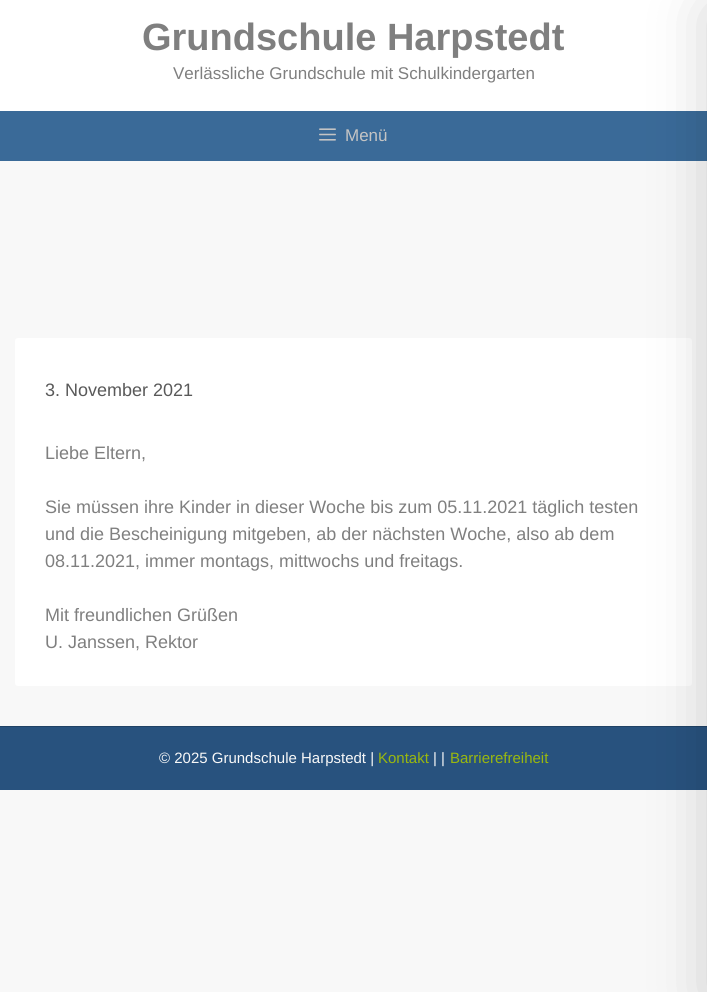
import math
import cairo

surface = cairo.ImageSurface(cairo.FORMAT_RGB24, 707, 992)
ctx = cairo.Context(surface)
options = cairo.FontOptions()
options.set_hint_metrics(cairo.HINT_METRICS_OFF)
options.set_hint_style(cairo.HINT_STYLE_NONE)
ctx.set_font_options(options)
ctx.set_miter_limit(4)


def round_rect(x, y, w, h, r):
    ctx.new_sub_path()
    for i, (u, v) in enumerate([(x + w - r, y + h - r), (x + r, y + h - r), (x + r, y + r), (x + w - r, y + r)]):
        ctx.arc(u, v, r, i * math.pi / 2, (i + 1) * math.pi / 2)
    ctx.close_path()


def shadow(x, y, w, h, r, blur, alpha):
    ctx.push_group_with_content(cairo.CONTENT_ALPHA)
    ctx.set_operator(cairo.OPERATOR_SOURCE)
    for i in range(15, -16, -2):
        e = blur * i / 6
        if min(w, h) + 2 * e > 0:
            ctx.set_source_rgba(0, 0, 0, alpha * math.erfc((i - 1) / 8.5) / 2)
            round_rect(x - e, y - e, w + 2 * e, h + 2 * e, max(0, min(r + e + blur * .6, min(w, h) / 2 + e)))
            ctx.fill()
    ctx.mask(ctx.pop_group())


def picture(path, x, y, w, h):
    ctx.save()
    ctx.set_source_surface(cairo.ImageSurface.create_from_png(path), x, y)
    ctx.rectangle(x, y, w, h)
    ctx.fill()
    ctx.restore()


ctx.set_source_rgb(0.969, 0.969, 0.969)
ctx.paint()
ctx.set_source_rgb(1, 1, 1)
ctx.rectangle(0, 0, 707, 111)
ctx.fill()
ctx.select_font_face("Liberation Sans", cairo.FONT_SLANT_NORMAL, cairo.FONT_WEIGHT_BOLD)
ctx.set_font_size(38)
ctx.set_source_rgb(0.498, 0.498, 0.498)
ctx.move_to(142, 50)
ctx.show_text("Grundschule Harpstedt")
ctx.select_font_face("Liberation Sans")
ctx.set_font_size(17)
ctx.move_to(173, 79)
ctx.show_text("Verlässliche Grundschule mit Schulkindergarten")
ctx.set_source_rgb(0.227, 0.416, 0.596)
ctx.rectangle(0, 111, 707, 50)
ctx.fill()
ctx.set_source_rgb(1, 1, 1)
round_rect(15, 338, 677, 348, 3)
ctx.fill()
ctx.set_source_rgb(0.157, 0.322, 0.494)
ctx.rectangle(0, 727, 707, 63)
ctx.fill()
ctx.set_source_rgb(0.125, 0.259, 0.396)
ctx.rectangle(0, 726, 707, 1)
ctx.fill()
ctx.set_source_rgb(0, 0, 0)
shadow(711, 10, 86, 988, 0, 30, 0.2)
picture("img1.png", 319, 128, 17, 13)
ctx.set_source_rgb(0.769, 0.769, 0.769)
ctx.move_to(345, 141)
ctx.show_text("Menü")
ctx.set_font_size(18)
ctx.set_source_rgb(0.349, 0.349, 0.349)
ctx.move_to(45, 396)
ctx.show_text("3. November 2021")
ctx.set_source_rgb(0.498, 0.498, 0.498)
ctx.move_to(45, 459)
ctx.show_text("Liebe Eltern,")
ctx.move_to(45, 513)
ctx.show_text("Sie müssen ihre Kinder in dieser Woche bis zum 05.11.2021 täglich testen")
ctx.move_to(45, 540)
ctx.show_text("und die Bescheinigung mitgeben, ab der nächsten Woche, also ab dem")
ctx.move_to(45, 567)
ctx.show_text("08.11.2021, immer montags, mittwochs und freitags.")
ctx.move_to(45, 621)
ctx.show_text("Mit freundlichen Grüßen")
ctx.move_to(45, 648)
ctx.show_text("U. Janssen, Rektor")
ctx.set_font_size(15)
ctx.set_source_rgb(0.969, 0.969, 0.969)
ctx.move_to(159, 763)
ctx.show_text("© 2025 Grundschule Harpstedt |")
ctx.set_source_rgb(0.604, 0.722, 0.055)
ctx.move_to(378, 763)
ctx.show_text("Kontakt")
ctx.set_source_rgb(0.969, 0.969, 0.969)
ctx.move_to(433, 763)
ctx.show_text("| |")
ctx.set_source_rgb(0.604, 0.722, 0.055)
ctx.move_to(450, 763)
ctx.show_text("Barrierefreiheit")
surface.write_to_png("page.png")
